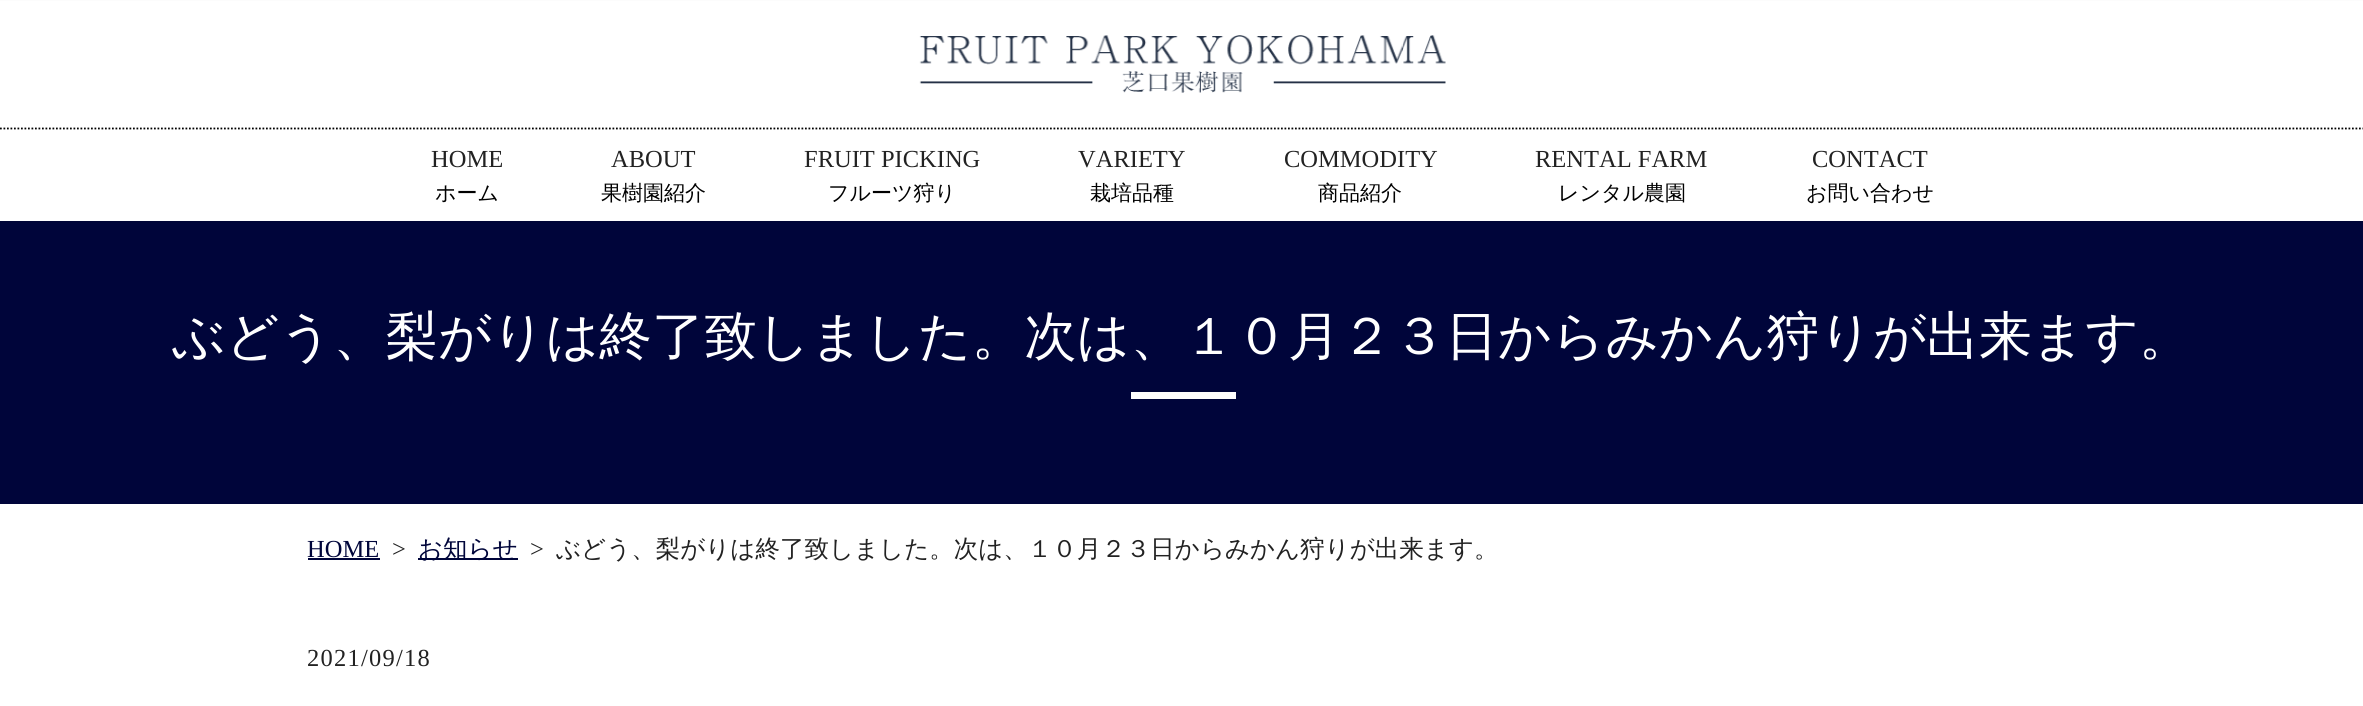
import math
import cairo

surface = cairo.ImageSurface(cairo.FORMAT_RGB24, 2363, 706)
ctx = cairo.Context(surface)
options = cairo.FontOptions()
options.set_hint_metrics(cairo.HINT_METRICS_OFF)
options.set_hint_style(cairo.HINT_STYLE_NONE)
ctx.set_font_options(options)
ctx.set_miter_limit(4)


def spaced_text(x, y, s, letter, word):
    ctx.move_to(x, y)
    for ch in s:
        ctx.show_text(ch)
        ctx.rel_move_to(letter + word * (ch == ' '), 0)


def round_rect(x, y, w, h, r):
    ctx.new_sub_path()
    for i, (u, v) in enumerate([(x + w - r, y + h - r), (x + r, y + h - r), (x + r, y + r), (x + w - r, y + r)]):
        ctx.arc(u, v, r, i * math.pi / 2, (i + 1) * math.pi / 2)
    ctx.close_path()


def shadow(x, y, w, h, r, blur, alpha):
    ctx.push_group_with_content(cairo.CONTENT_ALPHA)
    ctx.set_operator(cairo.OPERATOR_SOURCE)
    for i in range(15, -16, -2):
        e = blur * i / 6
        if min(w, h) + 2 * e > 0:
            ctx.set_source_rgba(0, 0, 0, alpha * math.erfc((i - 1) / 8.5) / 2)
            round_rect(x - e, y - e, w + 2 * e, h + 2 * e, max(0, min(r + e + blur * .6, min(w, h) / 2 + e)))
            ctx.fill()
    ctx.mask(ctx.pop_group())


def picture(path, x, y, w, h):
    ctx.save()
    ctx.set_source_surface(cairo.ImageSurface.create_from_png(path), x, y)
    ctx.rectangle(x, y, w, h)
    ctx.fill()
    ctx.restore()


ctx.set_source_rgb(1, 1, 1)
ctx.paint()
ctx.set_source_rgb(0, 0.02, 0.227)
ctx.rectangle(0, 221, 2363, 283)
ctx.fill()
ctx.set_source_rgb(0, 0, 0)
shadow(0, 2, 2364, 220, 0, 1, 0.1)
ctx.set_source_rgb(1, 1, 1)
ctx.rectangle(0, 1, 2363, 220)
ctx.fill()
ctx.new_path()
ctx.move_to(0, 128.5)
ctx.line_to(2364, 128.5)
ctx.set_source_rgb(0, 0, 0)
ctx.set_line_width(1.8)
ctx.set_dash([1.75, 1.75])
ctx.stroke()
picture("img1.png", 919, 35, 527, 58)
ctx.select_font_face("Liberation Serif")
ctx.set_font_size(24.5)
ctx.set_source_rgb(0.133, 0.133, 0.133)
ctx.move_to(431, 167)
ctx.show_text("HOME")
ctx.select_font_face("WenQuanYi Zen Hei Medium")
ctx.set_font_size(21)
ctx.set_source_rgb(0, 0, 0)
ctx.move_to(435, 200)
ctx.show_text("ホーム")
ctx.select_font_face("Liberation Serif")
ctx.set_font_size(24.5)
ctx.set_source_rgb(0.133, 0.133, 0.133)
ctx.move_to(611, 167)
ctx.show_text("ABOUT")
ctx.select_font_face("WenQuanYi Zen Hei Medium")
ctx.set_font_size(21)
ctx.set_source_rgb(0, 0, 0)
ctx.move_to(601, 200)
ctx.show_text("果樹園紹介")
ctx.select_font_face("Liberation Serif")
ctx.set_font_size(24.5)
ctx.set_source_rgb(0.133, 0.133, 0.133)
ctx.move_to(804, 167)
ctx.show_text("FRUIT PICKING")
ctx.select_font_face("WenQuanYi Zen Hei Medium")
ctx.set_font_size(21)
ctx.set_source_rgb(0, 0, 0)
ctx.move_to(828, 200)
ctx.show_text("フルーツ狩り")
ctx.select_font_face("Liberation Serif")
ctx.set_font_size(24.5)
ctx.set_source_rgb(0.133, 0.133, 0.133)
ctx.move_to(1078, 167)
ctx.show_text("VARIETY")
ctx.select_font_face("WenQuanYi Zen Hei Medium")
ctx.set_font_size(21)
ctx.set_source_rgb(0, 0, 0)
ctx.move_to(1090, 200)
ctx.show_text("栽培品種")
ctx.select_font_face("Liberation Serif")
ctx.set_font_size(24.5)
ctx.set_source_rgb(0.133, 0.133, 0.133)
ctx.move_to(1284, 167)
ctx.show_text("COMMODITY")
ctx.select_font_face("WenQuanYi Zen Hei Medium")
ctx.set_font_size(21)
ctx.set_source_rgb(0, 0, 0)
ctx.move_to(1318, 200)
ctx.show_text("商品紹介")
ctx.select_font_face("Liberation Serif")
ctx.set_font_size(24.5)
ctx.set_source_rgb(0.133, 0.133, 0.133)
ctx.move_to(1535, 167)
ctx.show_text("RENTAL FARM")
ctx.select_font_face("WenQuanYi Zen Hei Medium")
ctx.set_font_size(21)
ctx.set_source_rgb(0, 0, 0)
ctx.move_to(1558, 200)
ctx.show_text("レンタル農園")
ctx.select_font_face("Liberation Serif")
ctx.set_font_size(24.5)
ctx.set_source_rgb(0.133, 0.133, 0.133)
ctx.move_to(1812, 167)
ctx.show_text("CONTACT")
ctx.select_font_face("WenQuanYi Zen Hei Medium")
ctx.set_font_size(21)
ctx.set_source_rgb(0, 0, 0)
ctx.move_to(1806, 200)
ctx.show_text("お問い合わせ")
ctx.set_font_size(52.5)
ctx.set_source_rgb(1, 1, 1)
ctx.move_to(172, 354)
ctx.show_text("ぶどう、梨がりは終了致しました。次は、１０月２３日からみかん狩りが出来ます。")
ctx.rectangle(1131, 392, 105, 7)
ctx.fill()
ctx.select_font_face("Liberation Serif")
ctx.set_font_size(24.5)
ctx.set_source_rgb(0, 0.02, 0.227)
ctx.move_to(307, 557)
ctx.show_text("HOME")
ctx.rectangle(308, 558, 72, 2)
ctx.fill()
ctx.set_source_rgb(0.133, 0.133, 0.133)
ctx.move_to(392, 557)
ctx.show_text(">")
ctx.set_source_rgb(0, 0.02, 0.227)
ctx.rectangle(418, 558, 100, 2)
ctx.fill()
ctx.select_font_face("WenQuanYi Zen Hei Medium")
ctx.move_to(418, 557)
ctx.show_text("お知らせ")
ctx.select_font_face("Liberation Serif")
ctx.set_source_rgb(0.133, 0.133, 0.133)
ctx.move_to(530, 557)
ctx.show_text(">")
ctx.select_font_face("WenQuanYi Zen Hei Medium")
ctx.move_to(556, 557)
ctx.show_text("ぶどう、梨がりは終了致しました。次は、１０月２３日からみかん狩りが出来ます。")
ctx.select_font_face("Liberation Serif")
spaced_text(307, 666, "2021/09/18", 1.25, 0)
surface.write_to_png("page.png")
